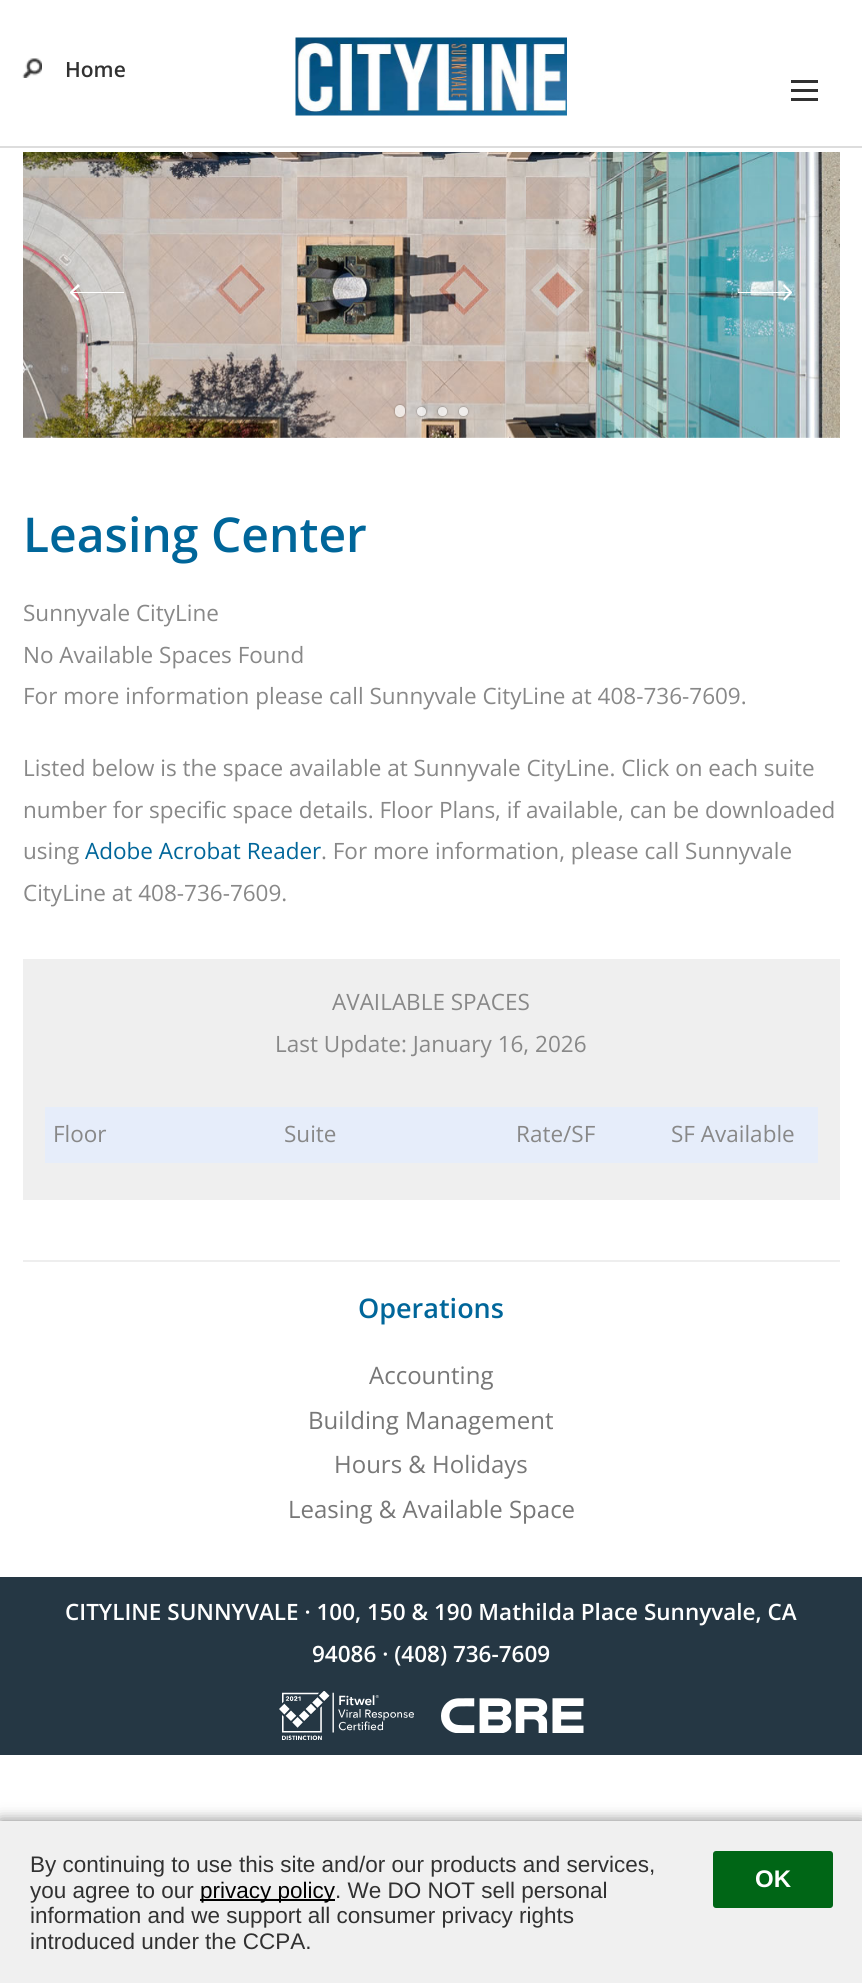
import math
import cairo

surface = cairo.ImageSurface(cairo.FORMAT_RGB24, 862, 1983)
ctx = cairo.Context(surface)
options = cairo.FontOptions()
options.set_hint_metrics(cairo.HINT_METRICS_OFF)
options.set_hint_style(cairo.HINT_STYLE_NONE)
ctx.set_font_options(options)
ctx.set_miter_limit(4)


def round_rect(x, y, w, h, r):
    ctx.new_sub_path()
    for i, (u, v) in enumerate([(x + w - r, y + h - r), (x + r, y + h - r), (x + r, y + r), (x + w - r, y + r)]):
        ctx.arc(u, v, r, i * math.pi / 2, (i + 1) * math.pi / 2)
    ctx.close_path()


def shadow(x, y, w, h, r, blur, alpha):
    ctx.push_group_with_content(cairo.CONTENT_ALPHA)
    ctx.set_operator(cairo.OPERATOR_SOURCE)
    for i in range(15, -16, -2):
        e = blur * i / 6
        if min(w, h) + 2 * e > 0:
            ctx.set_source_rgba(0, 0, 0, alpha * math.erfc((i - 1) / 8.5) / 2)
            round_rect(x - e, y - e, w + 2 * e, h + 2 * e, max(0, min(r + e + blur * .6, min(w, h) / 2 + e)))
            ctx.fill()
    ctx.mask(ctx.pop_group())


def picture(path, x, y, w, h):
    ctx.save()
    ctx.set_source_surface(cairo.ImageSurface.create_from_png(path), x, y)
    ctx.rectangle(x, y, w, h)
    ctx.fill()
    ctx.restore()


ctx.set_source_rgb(1, 1, 1)
ctx.paint()
ctx.set_source_rgb(0.867, 0.867, 0.867)
ctx.rectangle(0, 146, 862, 2)
ctx.fill()
picture("img1.png", 22, 58, 20, 20)
ctx.select_font_face("Open Sans SemiBold")
ctx.set_font_size(21)
ctx.set_source_rgb(0.192, 0.192, 0.192)
ctx.move_to(65, 77)
ctx.show_text("Home")
picture("img2.png", 295, 37, 272, 79)
ctx.rectangle(791, 80, 27, 3)
ctx.fill()
ctx.rectangle(791, 89, 27, 3)
ctx.fill()
ctx.rectangle(791, 98, 27, 3)
ctx.fill()
picture("img3.png", 23, 152, 817, 286)
ctx.set_source_rgb(1, 1, 1)
ctx.new_path()
ctx.move_to(80, 286)
ctx.line_to(73, 292)
ctx.line_to(124, 292)
ctx.line_to(124, 293)
ctx.line_to(73, 293)
ctx.line_to(79, 299)
ctx.line_to(78, 301)
ctx.line_to(70, 293)
ctx.line_to(70, 292)
ctx.line_to(78, 284)
ctx.close_path()
ctx.fill()
ctx.new_path()
ctx.move_to(783, 299)
ctx.line_to(789, 293)
ctx.line_to(738, 293)
ctx.line_to(738, 292)
ctx.line_to(789, 292)
ctx.line_to(783, 286)
ctx.line_to(784, 284)
ctx.line_to(792, 292)
ctx.line_to(792, 293)
ctx.line_to(784, 301)
ctx.close_path()
ctx.fill()
ctx.save()
ctx.set_fill_rule(cairo.FILL_RULE_EVEN_ODD)
ctx.new_path()
ctx.move_to(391, 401)
ctx.line_to(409, 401)
ctx.line_to(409, 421)
ctx.line_to(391, 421)
ctx.close_path()
ctx.move_to(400, 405)
ctx.curve_to(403, 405, 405, 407, 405, 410)
ctx.line_to(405, 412)
ctx.curve_to(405, 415, 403, 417, 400, 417)
ctx.curve_to(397, 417, 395, 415, 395, 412)
ctx.line_to(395, 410)
ctx.curve_to(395, 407, 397, 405, 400, 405)
ctx.close_path()
ctx.clip()
ctx.set_source_rgb(0.067, 0.067, 0.067)
shadow(395, 405, 10, 12, 5, 1, 0.4)
ctx.restore()
ctx.set_source_rgba(1, 1, 1, 0.7)
round_rect(395, 405, 10, 12, 5)
ctx.fill()
ctx.save()
ctx.set_fill_rule(cairo.FILL_RULE_EVEN_ODD)
ctx.new_path()
ctx.move_to(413, 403)
ctx.line_to(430, 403)
ctx.line_to(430, 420)
ctx.line_to(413, 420)
ctx.close_path()
ctx.move_to(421.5, 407)
ctx.curve_to(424, 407, 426, 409, 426, 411.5)
ctx.curve_to(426, 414, 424, 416, 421.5, 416)
ctx.curve_to(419, 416, 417, 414, 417, 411.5)
ctx.curve_to(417, 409, 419, 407, 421.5, 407)
ctx.close_path()
ctx.clip()
ctx.set_source_rgb(0.067, 0.067, 0.067)
shadow(417, 407, 9, 9, 4.5, 1, 0.4)
ctx.restore()
ctx.arc(421.5, 411.5, 4.5, 0, 2 * math.pi)
ctx.fill()
ctx.save()
ctx.set_fill_rule(cairo.FILL_RULE_EVEN_ODD)
ctx.new_path()
ctx.move_to(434, 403)
ctx.line_to(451, 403)
ctx.line_to(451, 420)
ctx.line_to(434, 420)
ctx.close_path()
ctx.move_to(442.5, 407)
ctx.curve_to(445, 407, 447, 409, 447, 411.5)
ctx.curve_to(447, 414, 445, 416, 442.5, 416)
ctx.curve_to(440, 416, 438, 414, 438, 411.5)
ctx.curve_to(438, 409, 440, 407, 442.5, 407)
ctx.close_path()
ctx.clip()
ctx.set_source_rgb(0.067, 0.067, 0.067)
shadow(438, 407, 9, 9, 4.5, 1, 0.4)
ctx.restore()
ctx.arc(442.5, 411.5, 4.5, 0, 2 * math.pi)
ctx.fill()
ctx.save()
ctx.set_fill_rule(cairo.FILL_RULE_EVEN_ODD)
ctx.new_path()
ctx.move_to(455, 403)
ctx.line_to(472, 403)
ctx.line_to(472, 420)
ctx.line_to(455, 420)
ctx.close_path()
ctx.move_to(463.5, 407)
ctx.curve_to(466, 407, 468, 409, 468, 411.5)
ctx.curve_to(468, 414, 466, 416, 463.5, 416)
ctx.curve_to(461, 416, 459, 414, 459, 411.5)
ctx.curve_to(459, 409, 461, 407, 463.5, 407)
ctx.close_path()
ctx.clip()
ctx.set_source_rgb(0.067, 0.067, 0.067)
shadow(459, 407, 9, 9, 4.5, 1, 0.4)
ctx.restore()
ctx.arc(463.5, 411.5, 4.5, 0, 2 * math.pi)
ctx.fill()
ctx.set_font_size(48)
ctx.set_source_rgb(0, 0.4, 0.604)
ctx.move_to(23, 552)
ctx.show_text("Leasing Center")
ctx.select_font_face("Open Sans")
ctx.set_font_size(22.5)
ctx.set_source_rgb(0.533, 0.533, 0.533)
ctx.move_to(23, 621)
ctx.show_text("Sunnyvale CityLine")
ctx.move_to(23, 663)
ctx.show_text("No Available Spaces Found")
ctx.move_to(23, 704)
ctx.show_text("For more information please call Sunnyvale CityLine at 408-736-7609.")
ctx.move_to(23, 776)
ctx.show_text("Listed below is the space available at Sunnyvale CityLine. Click on each suite")
ctx.move_to(23, 818)
ctx.show_text("number for specific space details. Floor Plans, if available, can be downloaded")
ctx.move_to(23, 859)
ctx.show_text("using")
ctx.set_source_rgb(0, 0.4, 0.604)
ctx.move_to(85, 859)
ctx.show_text("Adobe Acrobat Reader")
ctx.set_source_rgb(0.533, 0.533, 0.533)
ctx.move_to(321, 859)
ctx.show_text(". For more information, please call Sunnyvale")
ctx.move_to(23, 901)
ctx.show_text("CityLine at 408-736-7609.")
ctx.set_source_rgb(0.937, 0.937, 0.937)
ctx.rectangle(23, 959, 817, 241)
ctx.fill()
ctx.set_source_rgb(0.533, 0.533, 0.533)
ctx.move_to(332, 1010)
ctx.show_text("AVAILABLE SPACES")
ctx.move_to(275, 1052)
ctx.show_text("Last Update: January 16, 2026")
ctx.set_source_rgb(0.902, 0.929, 0.98)
ctx.rectangle(45, 1107, 773, 56)
ctx.fill()
ctx.set_source_rgb(0.533, 0.533, 0.533)
ctx.move_to(53, 1142)
ctx.show_text("Floor")
ctx.move_to(284, 1142)
ctx.show_text("Suite")
ctx.move_to(516, 1142)
ctx.show_text("Rate/SF")
ctx.move_to(671, 1142)
ctx.show_text("SF Available")
ctx.set_source_rgb(0.933, 0.933, 0.933)
ctx.rectangle(23, 1260, 817, 2)
ctx.fill()
ctx.select_font_face("Open Sans SemiBold")
ctx.set_font_size(27)
ctx.set_source_rgb(0, 0.4, 0.604)
ctx.move_to(358, 1318)
ctx.show_text("Operations")
ctx.select_font_face("Open Sans")
ctx.set_font_size(24)
ctx.set_source_rgb(0.467, 0.467, 0.467)
ctx.move_to(369, 1384)
ctx.show_text("Accounting")
ctx.move_to(308, 1429)
ctx.show_text("Building Management")
ctx.move_to(334, 1473)
ctx.show_text("Hours & Holidays")
ctx.move_to(288, 1518)
ctx.show_text("Leasing & Available Space")
ctx.set_source_rgb(0.145, 0.216, 0.267)
ctx.rectangle(0, 1577, 862, 178)
ctx.fill()
ctx.select_font_face("Open Sans SemiBold")
ctx.set_font_size(22.5)
ctx.set_source_rgb(1, 1, 1)
ctx.move_to(65, 1620)
ctx.show_text("CITYLINE SUNNYVALE · 100, 150 & 190 Mathilda Place Sunnyvale, CA")
ctx.move_to(312, 1662)
ctx.show_text("94086 · (408) 736-7609")
picture("img4.png", 279, 1691, 135, 49)
picture("img5.png", 441, 1698, 143, 35)
ctx.set_source_rgb(0, 0, 0)
shadow(0, 1821, 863, 162, 0, 7.5, 0.5)
ctx.set_source_rgb(0.941, 0.941, 0.941)
ctx.rectangle(0, 1821, 862, 162)
ctx.fill()
ctx.select_font_face("Liberation Sans")
ctx.set_source_rgb(0.192, 0.192, 0.192)
ctx.move_to(30, 1872)
ctx.show_text("By continuing to use this site and/or our products and services,")
ctx.move_to(30, 1898)
ctx.show_text("you agree to our")
ctx.set_source_rgb(0, 0, 0)
ctx.rectangle(200, 1899, 135, 2)
ctx.fill()
ctx.move_to(200, 1898)
ctx.show_text("privacy policy")
ctx.set_source_rgb(0.192, 0.192, 0.192)
ctx.move_to(335, 1898)
ctx.show_text(". We DO NOT sell personal")
ctx.move_to(30, 1923)
ctx.show_text("information and we support all consumer privacy rights")
ctx.move_to(30, 1949)
ctx.show_text("introduced under the CCPA.")
ctx.set_source_rgb(0, 0.4, 0.086)
round_rect(713, 1851, 120, 57, 3)
ctx.fill()
ctx.select_font_face("Liberation Sans", cairo.FONT_SLANT_NORMAL, cairo.FONT_WEIGHT_BOLD)
ctx.set_font_size(24)
ctx.set_source_rgb(1, 1, 1)
ctx.move_to(755, 1887)
ctx.show_text("OK")
surface.write_to_png("page.png")
